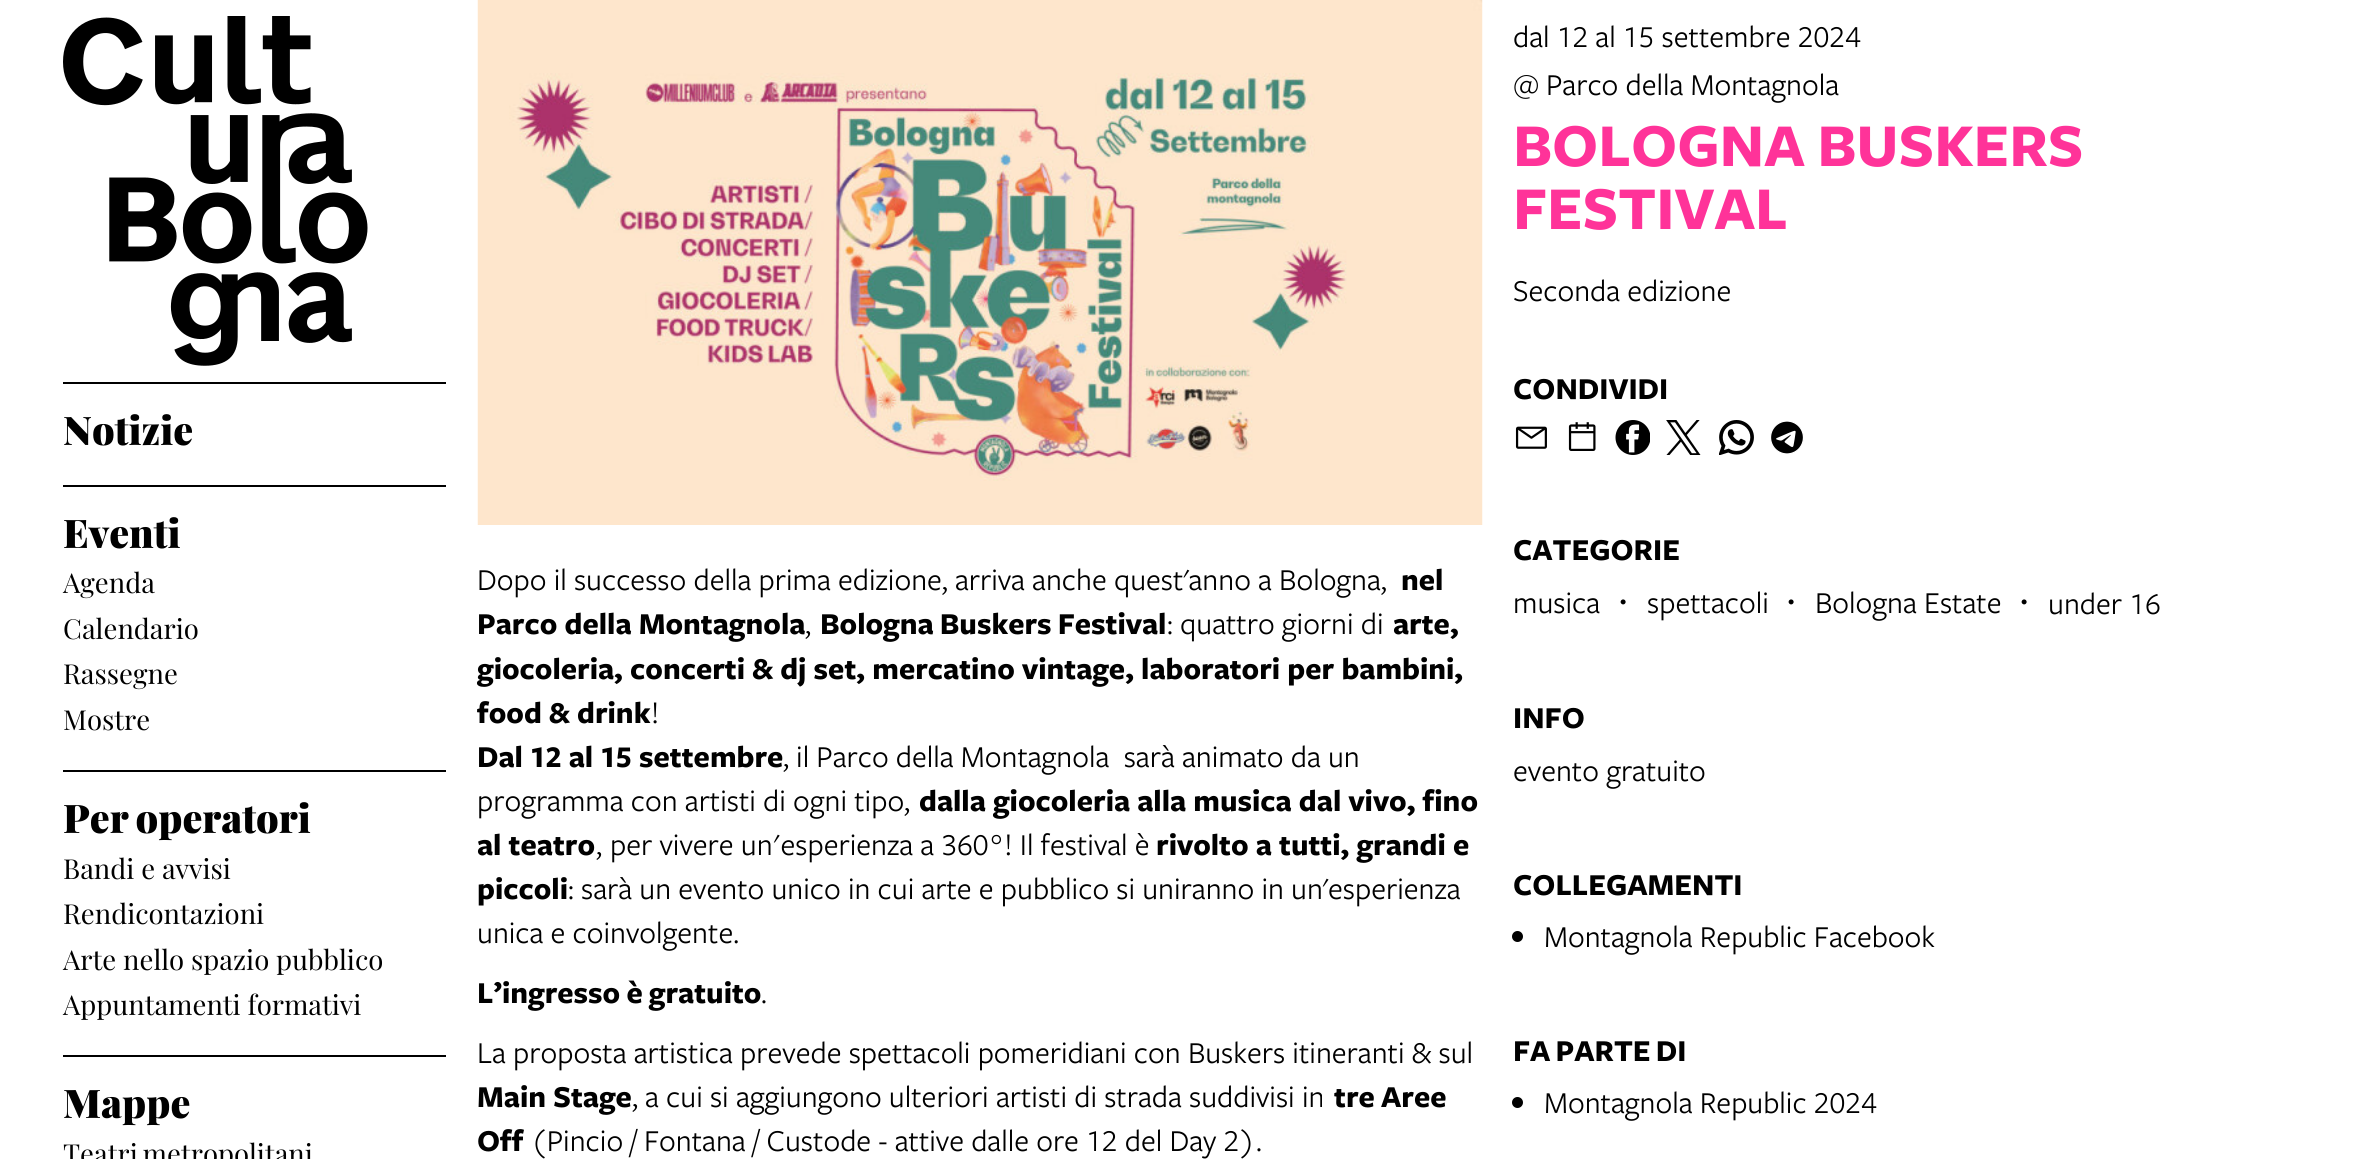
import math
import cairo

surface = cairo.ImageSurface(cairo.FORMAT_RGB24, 2372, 1159)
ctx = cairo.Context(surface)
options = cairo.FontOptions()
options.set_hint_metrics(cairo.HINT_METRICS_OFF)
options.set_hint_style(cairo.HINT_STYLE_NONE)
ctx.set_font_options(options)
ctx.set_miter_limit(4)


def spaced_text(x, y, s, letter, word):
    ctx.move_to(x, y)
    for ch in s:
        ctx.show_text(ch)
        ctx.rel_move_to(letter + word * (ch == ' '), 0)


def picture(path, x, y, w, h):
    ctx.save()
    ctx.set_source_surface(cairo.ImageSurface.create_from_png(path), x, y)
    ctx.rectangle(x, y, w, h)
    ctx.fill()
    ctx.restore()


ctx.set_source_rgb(1, 1, 1)
ctx.paint()
picture("img1.png", 63, 16, 305, 350)
ctx.set_source_rgb(0, 0, 0)
ctx.rectangle(63, 382, 383, 2)
ctx.fill()
ctx.select_font_face("Playfair Display Black")
ctx.set_font_size(39.5)
ctx.move_to(63, 445)
ctx.show_text("Notizie")
ctx.rectangle(63, 485, 383, 2)
ctx.fill()
ctx.move_to(63, 548)
ctx.show_text("Eventi")
ctx.rectangle(63, 770, 383, 2)
ctx.fill()
ctx.select_font_face("Playfair Display")
ctx.set_font_size(27.5)
ctx.move_to(63, 593)
ctx.show_text("Agenda")
ctx.move_to(63, 639)
ctx.show_text("Calendario")
ctx.move_to(63, 684)
ctx.show_text("Rassegne")
ctx.move_to(63, 730)
ctx.show_text("Mostre")
ctx.select_font_face("Playfair Display Black")
ctx.set_font_size(39.5)
spaced_text(63, 833, "Per operatori", 0, -2)
ctx.rectangle(63, 1055, 383, 2)
ctx.fill()
ctx.select_font_face("Playfair Display")
ctx.set_font_size(27.5)
ctx.move_to(63, 879)
ctx.show_text("Bandi e avvisi")
ctx.move_to(63, 924)
ctx.show_text("Rendicontazioni")
ctx.move_to(63, 970)
ctx.show_text("Arte nello spazio pubblico")
ctx.move_to(63, 1015)
ctx.show_text("Appuntamenti formativi")
ctx.select_font_face("Playfair Display Black")
ctx.set_font_size(39.5)
ctx.move_to(63, 1118)
ctx.show_text("Mappe")
ctx.select_font_face("Playfair Display")
ctx.set_font_size(27.5)
spaced_text(63, 1164, "Teatri metropolitani", 0, -2)
picture("img2.png", 477, 0, 1006, 525)
ctx.select_font_face("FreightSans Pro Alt")
ctx.set_font_size(31.5)
ctx.move_to(1513, 47)
ctx.show_text("dal 12 al 15 settembre 2024")
ctx.select_font_face("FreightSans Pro")
ctx.move_to(1513, 95)
ctx.show_text("@")
ctx.move_to(1546, 95)
ctx.show_text("Parco della Montagnola")
ctx.select_font_face("FreightSans Pro", cairo.FONT_SLANT_NORMAL, cairo.FONT_WEIGHT_BOLD)
ctx.set_font_size(63)
ctx.set_source_rgb(1, 0.2, 0.6)
spaced_text(1513, 166, "BOLOGNA BUSKERS", 0, -2)
ctx.move_to(1513, 229)
ctx.show_text("FESTIVAL")
ctx.select_font_face("FreightSans Pro")
ctx.set_font_size(31.5)
ctx.set_source_rgb(0, 0, 0)
ctx.move_to(1513, 301)
ctx.show_text("Seconda edizione")
ctx.select_font_face("FreightSans Pro", cairo.FONT_SLANT_NORMAL, cairo.FONT_WEIGHT_BOLD)
ctx.move_to(1513, 399)
ctx.show_text("CONDIVIDI")
picture("img3.png", 1515, 426, 32, 23)
picture("img4.png", 1568, 422, 28, 29)
picture("img5.png", 1615, 420, 35, 35)
picture("img6.png", 1666, 420, 35, 35)
picture("img7.png", 1719, 420, 35, 35)
picture("img8.png", 1770, 421, 34, 33)
ctx.move_to(1513, 560)
ctx.show_text("CATEGORIE")
ctx.select_font_face("FreightSans Pro")
ctx.move_to(1513, 613)
ctx.show_text("musica")
ctx.select_font_face("WenQuanYi Zen Hei Medium")
ctx.move_to(1607, 613)
ctx.show_text("・")
ctx.select_font_face("FreightSans Pro")
ctx.move_to(1647, 613)
ctx.show_text("spettacoli")
ctx.select_font_face("WenQuanYi Zen Hei Medium")
ctx.move_to(1775, 613)
ctx.show_text("・")
ctx.select_font_face("FreightSans Pro")
ctx.move_to(1815, 613)
ctx.show_text("Bologna Estate")
ctx.select_font_face("WenQuanYi Zen Hei Medium")
ctx.move_to(2008, 613)
ctx.show_text("・")
ctx.select_font_face("FreightSans Pro Alt")
ctx.move_to(2048, 614)
ctx.show_text("under 16")
ctx.select_font_face("FreightSans Pro", cairo.FONT_SLANT_NORMAL, cairo.FONT_WEIGHT_BOLD)
ctx.move_to(1513, 728)
ctx.show_text("INFO")
ctx.select_font_face("FreightSans Pro")
ctx.move_to(1513, 781)
ctx.show_text("evento gratuito")
ctx.select_font_face("FreightSans Pro", cairo.FONT_SLANT_NORMAL, cairo.FONT_WEIGHT_BOLD)
ctx.move_to(1513, 895)
ctx.show_text("COLLEGAMENTI")
ctx.new_path()
ctx.arc(1517.5, 936.5, 5.5, 0, 2 * math.pi)
ctx.fill()
ctx.select_font_face("FreightSans Pro")
ctx.move_to(1544, 947)
ctx.show_text("Montagnola Republic Facebook")
ctx.select_font_face("FreightSans Pro", cairo.FONT_SLANT_NORMAL, cairo.FONT_WEIGHT_BOLD)
spaced_text(1513, 1061, "FA PARTE DI", 0, -2)
ctx.new_path()
ctx.arc(1517.5, 1102.5, 5.5, 0, 2 * math.pi)
ctx.fill()
ctx.select_font_face("FreightSans Pro Alt")
ctx.move_to(1544, 1113)
ctx.show_text("Montagnola Republic 2024")
ctx.select_font_face("FreightSans Pro")
ctx.move_to(477, 590)
ctx.show_text("Dopo il successo della prima edizione, arriva anche quest'anno a Bologna,")
ctx.select_font_face("FreightSans Pro", cairo.FONT_SLANT_NORMAL, cairo.FONT_WEIGHT_BOLD)
ctx.move_to(1401, 590)
ctx.show_text("nel")
ctx.move_to(477, 634)
ctx.show_text("Parco della Montagnola")
ctx.select_font_face("FreightSans Pro")
ctx.move_to(805, 634)
ctx.show_text(",")
ctx.select_font_face("FreightSans Pro", cairo.FONT_SLANT_NORMAL, cairo.FONT_WEIGHT_BOLD)
spaced_text(820, 634, "Bologna Buskers Festival", 0, -1)
ctx.select_font_face("FreightSans Pro")
ctx.move_to(1167, 634)
ctx.show_text(": quattro giorni di")
ctx.select_font_face("FreightSans Pro", cairo.FONT_SLANT_NORMAL, cairo.FONT_WEIGHT_BOLD)
ctx.move_to(1393, 634)
ctx.show_text("arte,")
ctx.move_to(477, 679)
ctx.show_text("giocoleria, concerti & dj set, mercatino vintage, laboratori per bambini,")
ctx.move_to(477, 723)
ctx.show_text("food & drink")
ctx.select_font_face("FreightSans Pro")
ctx.move_to(651, 723)
ctx.show_text("!")
ctx.select_font_face("FreightSans Pro Alt", cairo.FONT_SLANT_NORMAL, cairo.FONT_WEIGHT_BOLD)
ctx.move_to(477, 767)
ctx.show_text("Dal 12 al 15 settembre")
ctx.select_font_face("FreightSans Pro")
ctx.move_to(783, 767)
ctx.show_text(", il Parco della Montagnola  sarà animato da un")
ctx.move_to(477, 811)
ctx.show_text("programma con artisti di ogni tipo,")
ctx.select_font_face("FreightSans Pro", cairo.FONT_SLANT_NORMAL, cairo.FONT_WEIGHT_BOLD)
ctx.move_to(919, 811)
ctx.show_text("dalla giocoleria alla musica dal vivo, fino")
ctx.move_to(477, 855)
ctx.show_text("al teatro")
ctx.select_font_face("FreightSans Pro Alt")
ctx.move_to(595, 855)
ctx.show_text(", per vivere un'esperienza a 360°! Il festival è")
ctx.select_font_face("FreightSans Pro", cairo.FONT_SLANT_NORMAL, cairo.FONT_WEIGHT_BOLD)
ctx.move_to(1156, 855)
ctx.show_text("rivolto a tutti, grandi e")
ctx.move_to(477, 899)
ctx.show_text("piccoli")
ctx.select_font_face("FreightSans Pro")
ctx.move_to(568, 899)
ctx.show_text(": sarà un evento unico in cui arte e pubblico si uniranno in un'esperienza")
ctx.move_to(477, 943)
ctx.show_text("unica e coinvolgente.")
ctx.select_font_face("FreightSans Pro", cairo.FONT_SLANT_NORMAL, cairo.FONT_WEIGHT_BOLD)
spaced_text(477, 1003, "L’ingresso è gratuito", 0, -1)
ctx.select_font_face("FreightSans Pro")
ctx.move_to(761, 1003)
ctx.show_text(".")
ctx.move_to(477, 1063)
ctx.show_text("La proposta artistica prevede spettacoli pomeridiani con Buskers itineranti & sul")
ctx.select_font_face("FreightSans Pro", cairo.FONT_SLANT_NORMAL, cairo.FONT_WEIGHT_BOLD)
ctx.move_to(477, 1107)
ctx.show_text("Main Stage")
ctx.select_font_face("FreightSans Pro")
ctx.move_to(632, 1107)
ctx.show_text(", a cui si aggiungono ulteriori artisti di strada suddivisi in")
ctx.select_font_face("FreightSans Pro", cairo.FONT_SLANT_NORMAL, cairo.FONT_WEIGHT_BOLD)
spaced_text(1334, 1107, "tre Aree", 0, -1)
ctx.move_to(477, 1151)
ctx.show_text("Off")
ctx.select_font_face("FreightSans Pro Alt")
ctx.move_to(531, 1151)
ctx.show_text("(Pincio / Fontana / Custode - attive dalle ore 12 del Day 2).")
surface.write_to_png("page.png")
